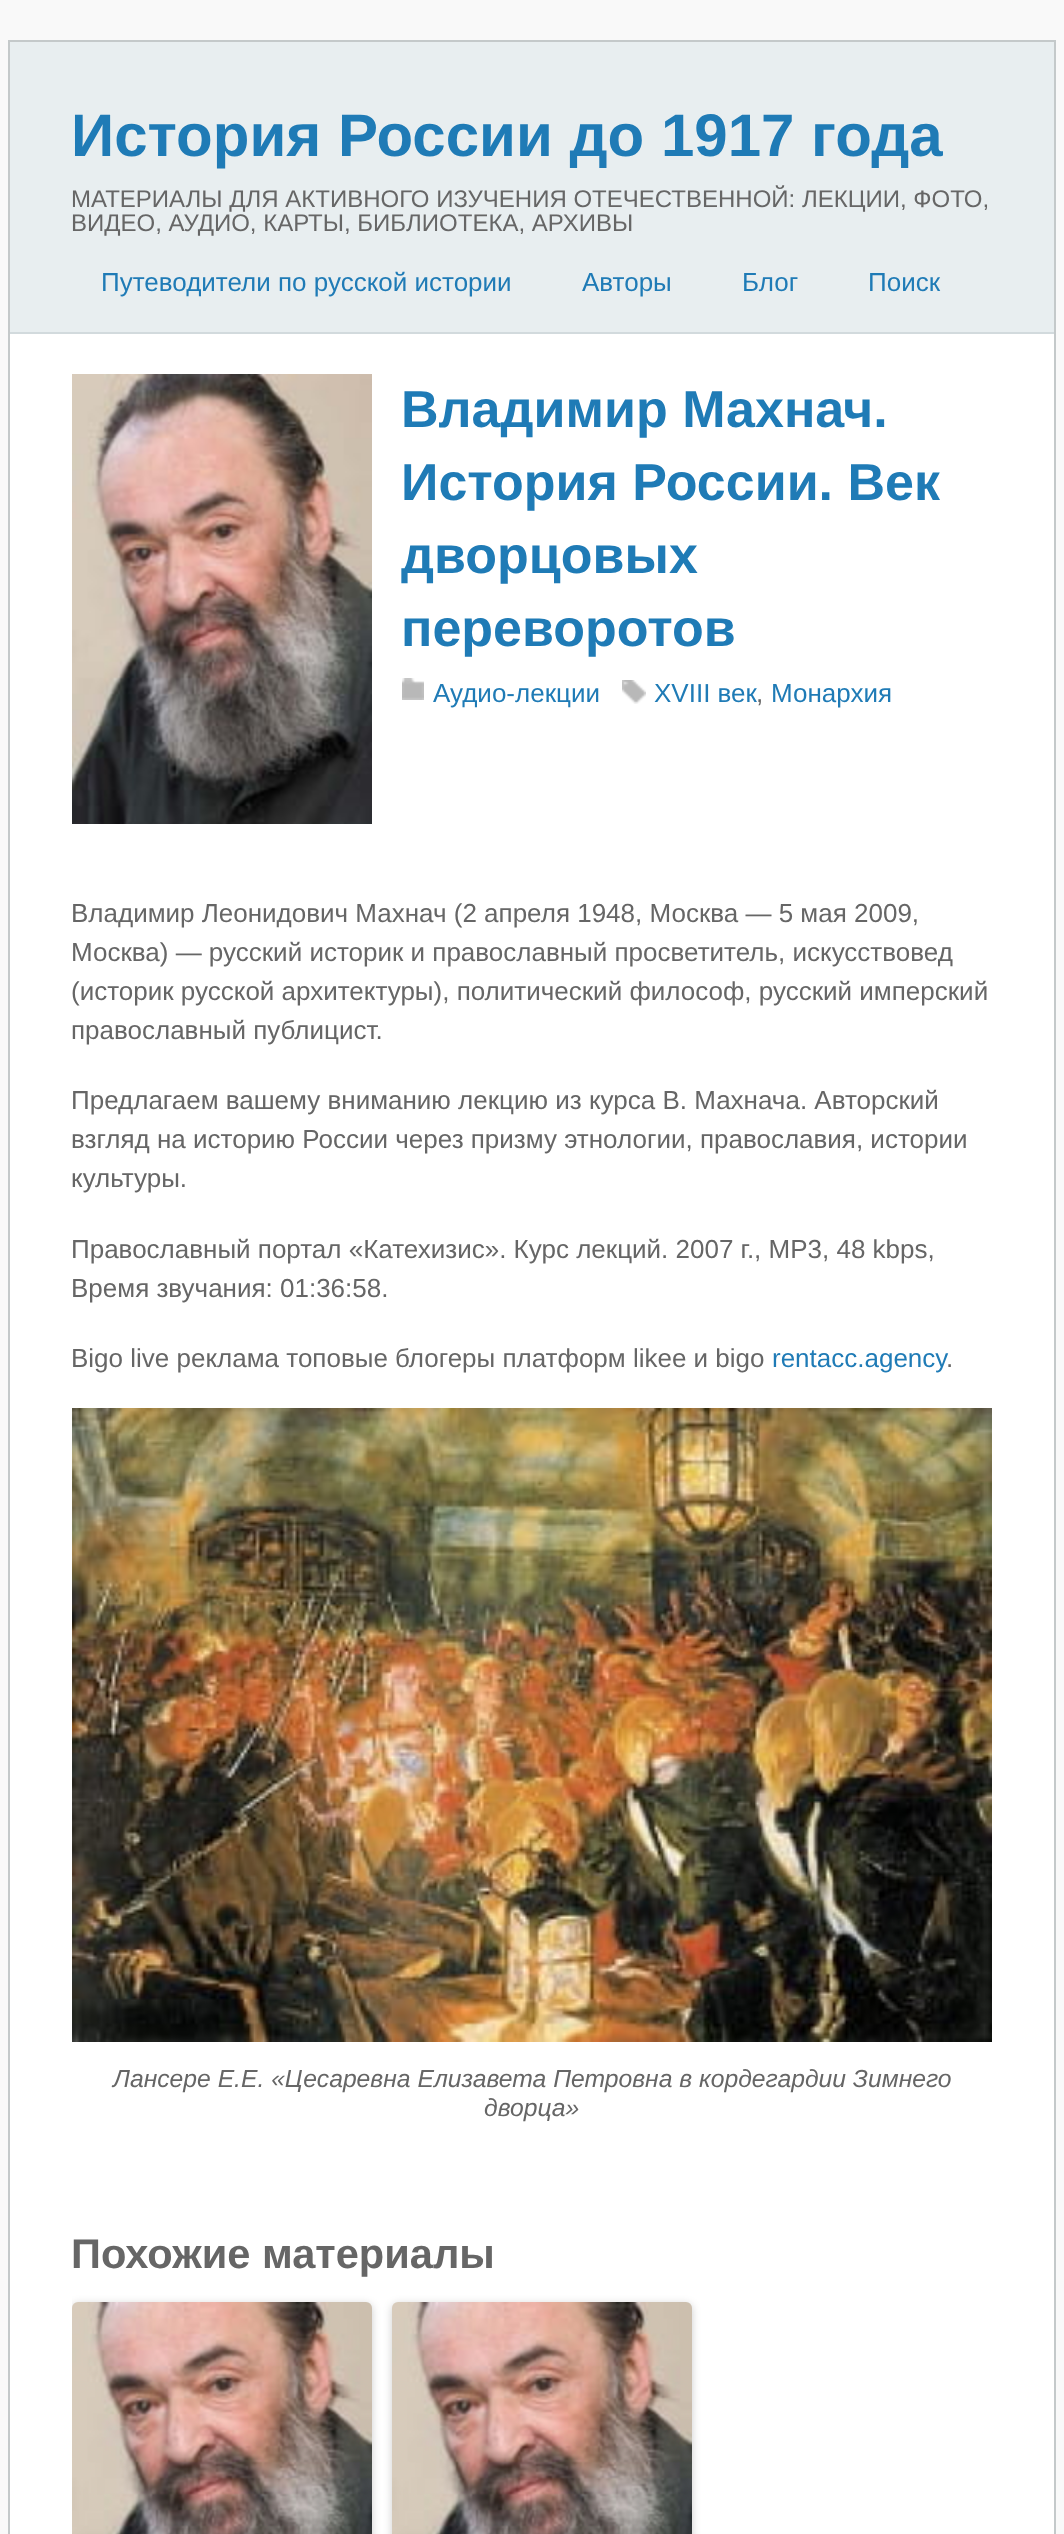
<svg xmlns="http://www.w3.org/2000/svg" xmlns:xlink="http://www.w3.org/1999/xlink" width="1064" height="2534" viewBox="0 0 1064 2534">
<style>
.cls-1{font:bold 60px Liberation Sans;fill:#1f7bb6}
.cls-2{font:24px Liberation Sans;fill:#666666}
.cls-3{font:26px Liberation Sans;fill:#1f7bb6}
.cls-4{font:bold 52px Liberation Sans;fill:#1f7bb6}
.cls-5{font:26px Liberation Sans;fill:#666666}
.cls-6{font:italic 24.7px Liberation Sans;fill:#666666}
.cls-7{font:bold 41.6px Liberation Sans;fill:#666666}
</style>
<defs>
<clipPath id="clip1"><rect x="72" y="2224" width="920" height="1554"/></clipPath>
</defs>
<rect width="100%" height="100%" fill="#f9f9f9"/>
<rect fill="none" stroke="#c4c9ca" stroke-width="2" x="9" y="41" width="1046" height="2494"/>
<rect fill="#e8eef0" x="10" y="42" width="1044" height="290"/>
<rect fill="#d2dadd" x="10" y="332" width="1044" height="2"/>
<rect fill="#ffffff" x="10" y="334" width="1044" height="2200"/>
<image xlink:href="image0.png" x="72" y="374" width="300" height="450"/>
<image xlink:href="image1.png" x="402" y="678" width="22" height="22"/>
<image xlink:href="image2.png" x="622" y="680" width="24" height="24"/>
<image xlink:href="image3.png" x="72" y="1408" width="920" height="634"/>
<g clip-path="url(#clip1)">
<rect fill="#000000" fill-opacity="0.2" filter="blur(4px)" x="72" y="2304" width="300" height="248" rx="6"/>
</g>
<image xlink:href="image4.png" x="72" y="2302" width="300" height="232"/>
<rect fill="#000000" fill-opacity="0.2" filter="blur(4px)" x="392" y="2304" width="300" height="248" rx="6"/>
<image xlink:href="image4.png" x="392" y="2302" width="300" height="232"/>
<text class="cls-1" x="71" y="156">История России до 1917 года</text>
<text class="cls-2"><tspan x="71" y="207">МАТЕРИАЛЫ ДЛЯ АКТИВНОГО ИЗУЧЕНИЯ ОТЕЧЕСТВЕННОЙ: ЛЕКЦИИ, ФОТО,</tspan><tspan x="71" y="231">ВИДЕО, АУДИО, КАРТЫ, БИБЛИОТЕКА, АРХИВЫ</tspan></text>
<text class="cls-3" x="101" y="291">Путеводители по русской истории</text>
<text class="cls-3" x="582" y="291">Авторы</text>
<text class="cls-3" x="742" y="291">Блог</text>
<text class="cls-3" x="868" y="291">Поиск</text>
<text class="cls-4"><tspan x="401" y="427">Владимир Махнач.</tspan><tspan x="401" y="500">История России. Век</tspan><tspan x="401" y="573">дворцовых</tspan><tspan x="401" y="646">переворотов</tspan></text>
<text class="cls-3" x="433" y="702">Аудио-лекции</text>
<text class="cls-3" x="654" y="702">XVIII век</text>
<text class="cls-5" x="756" y="702">,</text>
<text class="cls-3" x="771" y="702">Монархия</text>
<text class="cls-5"><tspan x="71" y="922">Владимир Леонидович Махнач (2 апреля 1948, Москва — 5 мая 2009,</tspan><tspan x="71" y="961">Москва) — русский историк и православный просветитель, искусствовед</tspan><tspan x="71" y="1000">(историк русской архитектуры), политический философ, русский имперский</tspan><tspan x="71" y="1039">православный публицист.</tspan></text>
<text class="cls-5"><tspan x="71" y="1109">Предлагаем вашему вниманию лекцию из курса В. Махнача. Авторский</tspan><tspan x="71" y="1148">взгляд на историю России через призму этнологии, православия, истории</tspan><tspan x="71" y="1187">культуры.</tspan></text>
<text class="cls-5"><tspan x="71" y="1258">Православный портал «Катехизис». Курс лекций. 2007 г., MP3, 48 kbps,</tspan><tspan x="71" y="1297">Время звучания: 01:36:58.</tspan></text>
<text class="cls-5" x="71" y="1367">Bigo live реклама топовые блогеры платформ likee и bigo</text>
<text class="cls-3" x="772" y="1367">rentacc.agency</text>
<text class="cls-5" x="946" y="1367">.</text>
<text class="cls-6" x="113" y="2087">Лансере Е.Е. «Цесаревна Елизавета Петровна в кордегардии Зимнего</text>
<text class="cls-6" x="484" y="2116">дворца»</text>
<text class="cls-7" x="71" y="2268">Похожие материалы</text>
</svg>
